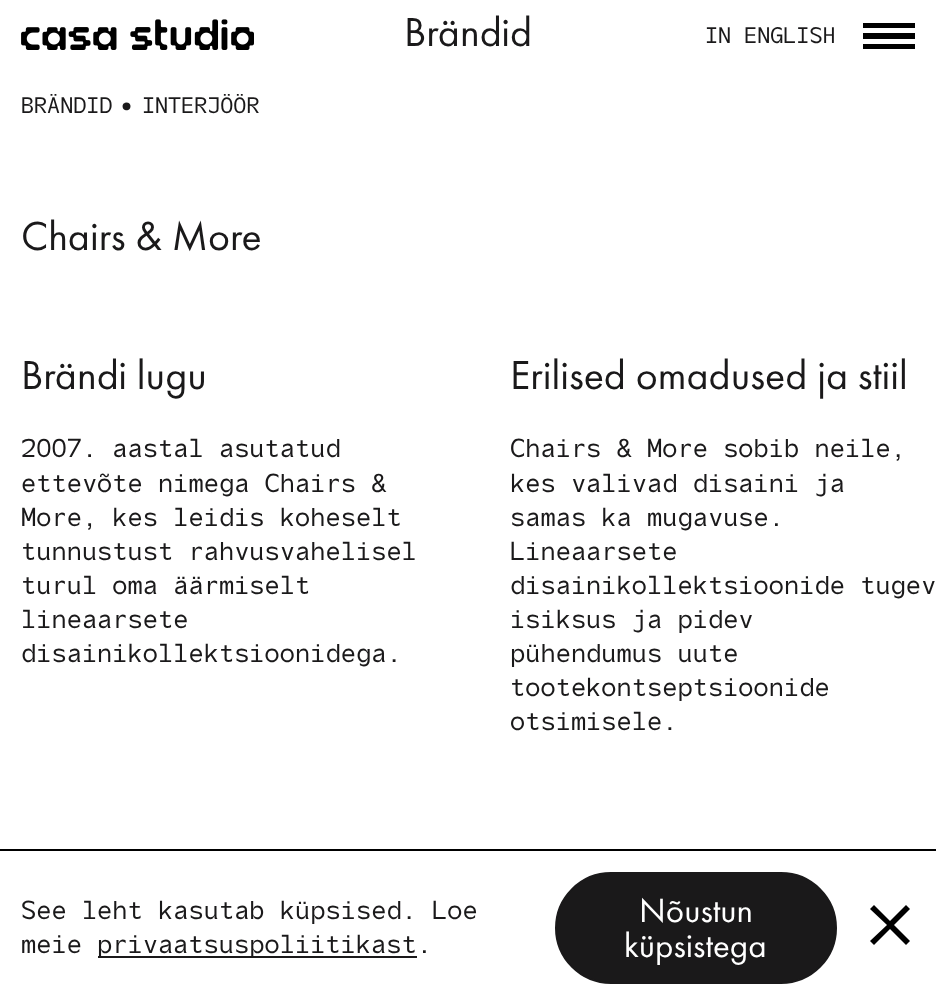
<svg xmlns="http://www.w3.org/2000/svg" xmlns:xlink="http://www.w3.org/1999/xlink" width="936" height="1004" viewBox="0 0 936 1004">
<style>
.cls-1{font:42px Futura PT;fill:#1a191a}
.cls-2{font:22.5px 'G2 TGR';fill:#1a191a}
.cls-3{font:26.25px 'G2 TGR';fill:#1a191a}
.cls-4{font:35px Futura PT;fill:#ffffff}
</style>
<rect width="100%" height="100%" fill="#ffffff"/>
<image xlink:href="image0.png" x="21" y="19" width="233" height="31"/>
<rect fill="#000000" x="863" y="23" width="52" height="5"/>
<rect fill="#000000" x="863" y="33" width="52" height="6"/>
<rect fill="#000000" x="863" y="44" width="52" height="5"/>
<rect fill="#000000" x="0" y="849" width="936" height="2"/>
<rect fill="#1a191a" x="98" y="956" width="319" height="2"/>
<rect fill="#1a191a" stroke="#1a191a" stroke-width="2" x="556" y="873" width="280" height="110" rx="55"/>
<path fill="#000000" d="M910 909L906 905L890 921L874 905L870 909L887 925L870 941L874 945L890 929L906 945L910 941L894 925Z"/>
<text class="cls-1" x="404" y="46">Brändid</text>
<text class="cls-2" x="705" y="43">IN ENGLISH</text>
<text class="cls-2" x="21" y="113">BRÄNDID</text>
<text class="cls-2" x="120" y="113">•</text>
<text class="cls-2" x="142" y="113">INTERJÖÖR</text>
<text class="cls-1" x="21" y="250">Chairs &amp; More</text>
<text class="cls-1" x="21" y="389">Brändi lugu</text>
<text class="cls-3"><tspan x="21" y="457">2007. aastal asutatud</tspan><tspan x="21" y="492">ettevõte nimega Chairs &amp;</tspan><tspan x="21" y="526">More, kes leidis koheselt</tspan><tspan x="21" y="560">tunnustust rahvusvahelisel</tspan><tspan x="21" y="594">turul oma äärmiselt</tspan><tspan x="21" y="628">lineaarsete</tspan><tspan x="21" y="662">disainikollektsioonidega.</tspan></text>
<text class="cls-1" x="510" y="389">Erilised omadused ja stiil</text>
<text class="cls-3"><tspan x="510" y="457">Chairs &amp; More sobib neile,</tspan><tspan x="510" y="492">kes valivad disaini ja</tspan><tspan x="510" y="526">samas ka mugavuse.</tspan><tspan x="510" y="560">Lineaarsete</tspan><tspan x="510" y="594">disainikollektsioonide tugev</tspan><tspan x="510" y="628">isiksus ja pidev</tspan><tspan x="510" y="662">pühendumus uute</tspan><tspan x="510" y="696">tootekontseptsioonide</tspan><tspan x="510" y="730">otsimisele.</tspan></text>
<text class="cls-3"><tspan x="21" y="919">See leht kasutab küpsised. Loe</tspan><tspan x="21" y="953">meie</tspan></text>
<text class="cls-3" x="97" y="953">privaatsuspoliitikast.</text>
<text class="cls-4" x="639" y="922">Nõustun</text>
<text class="cls-4" x="624" y="957">küpsistega</text>
</svg>
